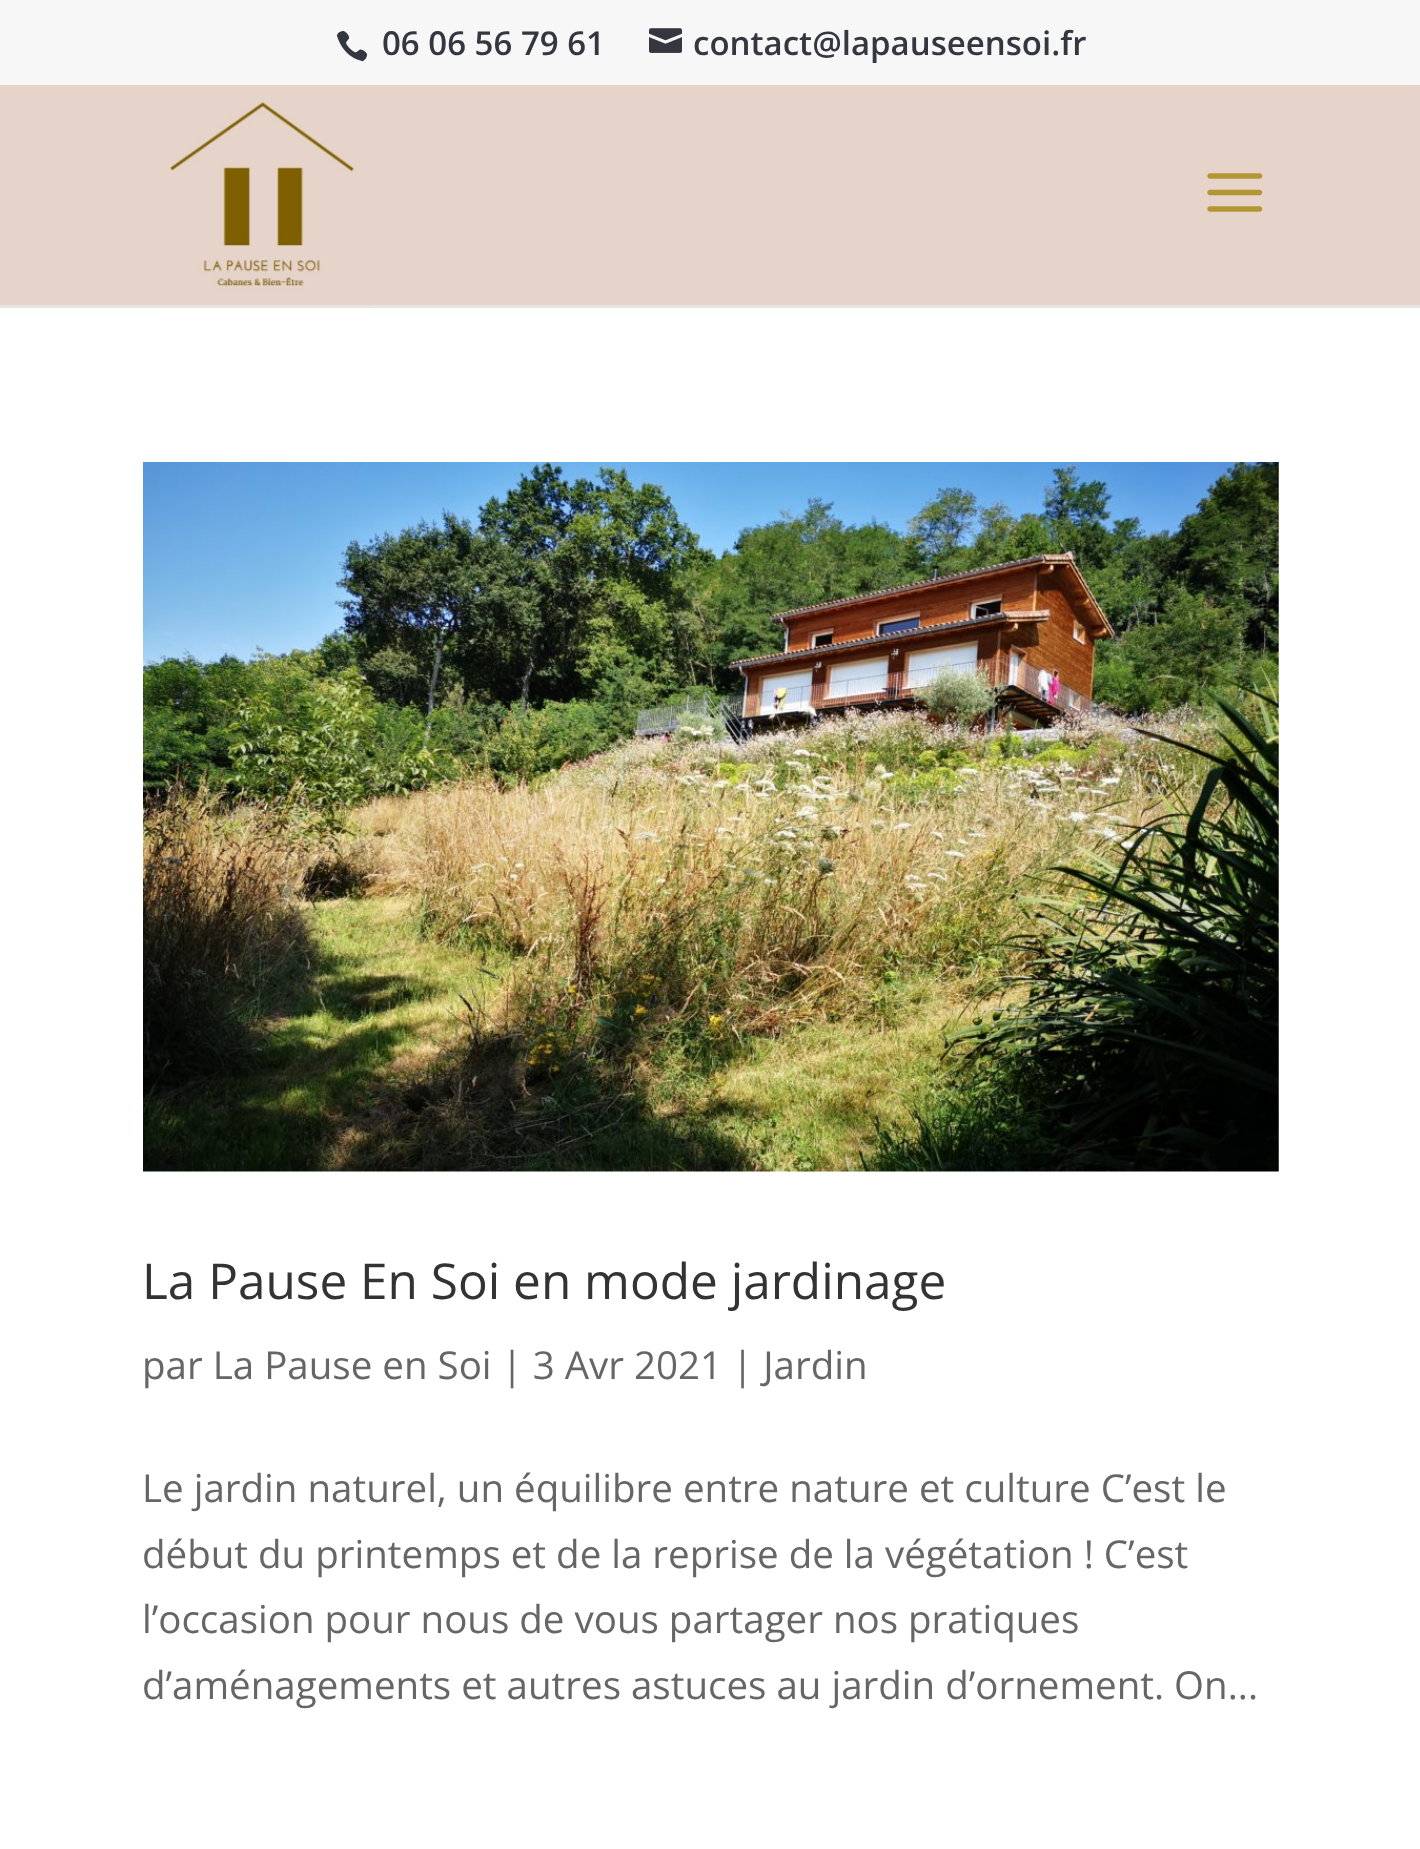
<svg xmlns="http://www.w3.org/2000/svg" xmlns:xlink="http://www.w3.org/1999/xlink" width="1420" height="1849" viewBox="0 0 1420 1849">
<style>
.cls-1{font:600 33px Open Sans;fill:#353740}
.cls-2{font:49.5px Open Sans;fill:#333333}
.cls-3{font:38.5px Open Sans;fill:#666666}
</style>
<rect width="100%" height="100%" fill="#ffffff"/>
<rect fill="#f7f7f7" x="0" y="0" width="1420" height="85"/>
<image xlink:href="image0.png" x="336" y="30" width="32" height="32"/>
<image xlink:href="image1.png" x="649" y="28" width="33" height="25"/>
<path fill="#e6e6e6" d="M0 305V308H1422V88V305Z"/>
<rect fill="#e6d4ca" x="0" y="85" width="1420" height="220"/>
<image xlink:href="image2.png" x="151" y="102" width="220" height="204"/>
<image xlink:href="image3.png" x="1207" y="173" width="56" height="39"/>
<image xlink:href="image4.png" x="143" y="462" width="1136" height="710"/>
<text class="cls-1" x="382" y="55">06 06 56 79 61</text>
<text class="cls-1" x="693" y="55">contact@lapauseensoi.fr</text>
<text class="cls-2" x="142" y="1299">La Pause En Soi en mode jardinage</text>
<text class="cls-3" x="142" y="1379">par La Pause en Soi | 3 Avr 2021 | Jardin</text>
<text class="cls-3"><tspan x="142" y="1502">Le jardin naturel, un équilibre entre nature et culture C’est le</tspan><tspan x="142" y="1568">début du printemps et de la reprise de la végétation ! C’est</tspan><tspan x="142" y="1633">l’occasion pour nous de vous partager nos pratiques</tspan><tspan x="142" y="1699">d’aménagements et autres astuces au jardin d’ornement. On...</tspan></text>
</svg>
